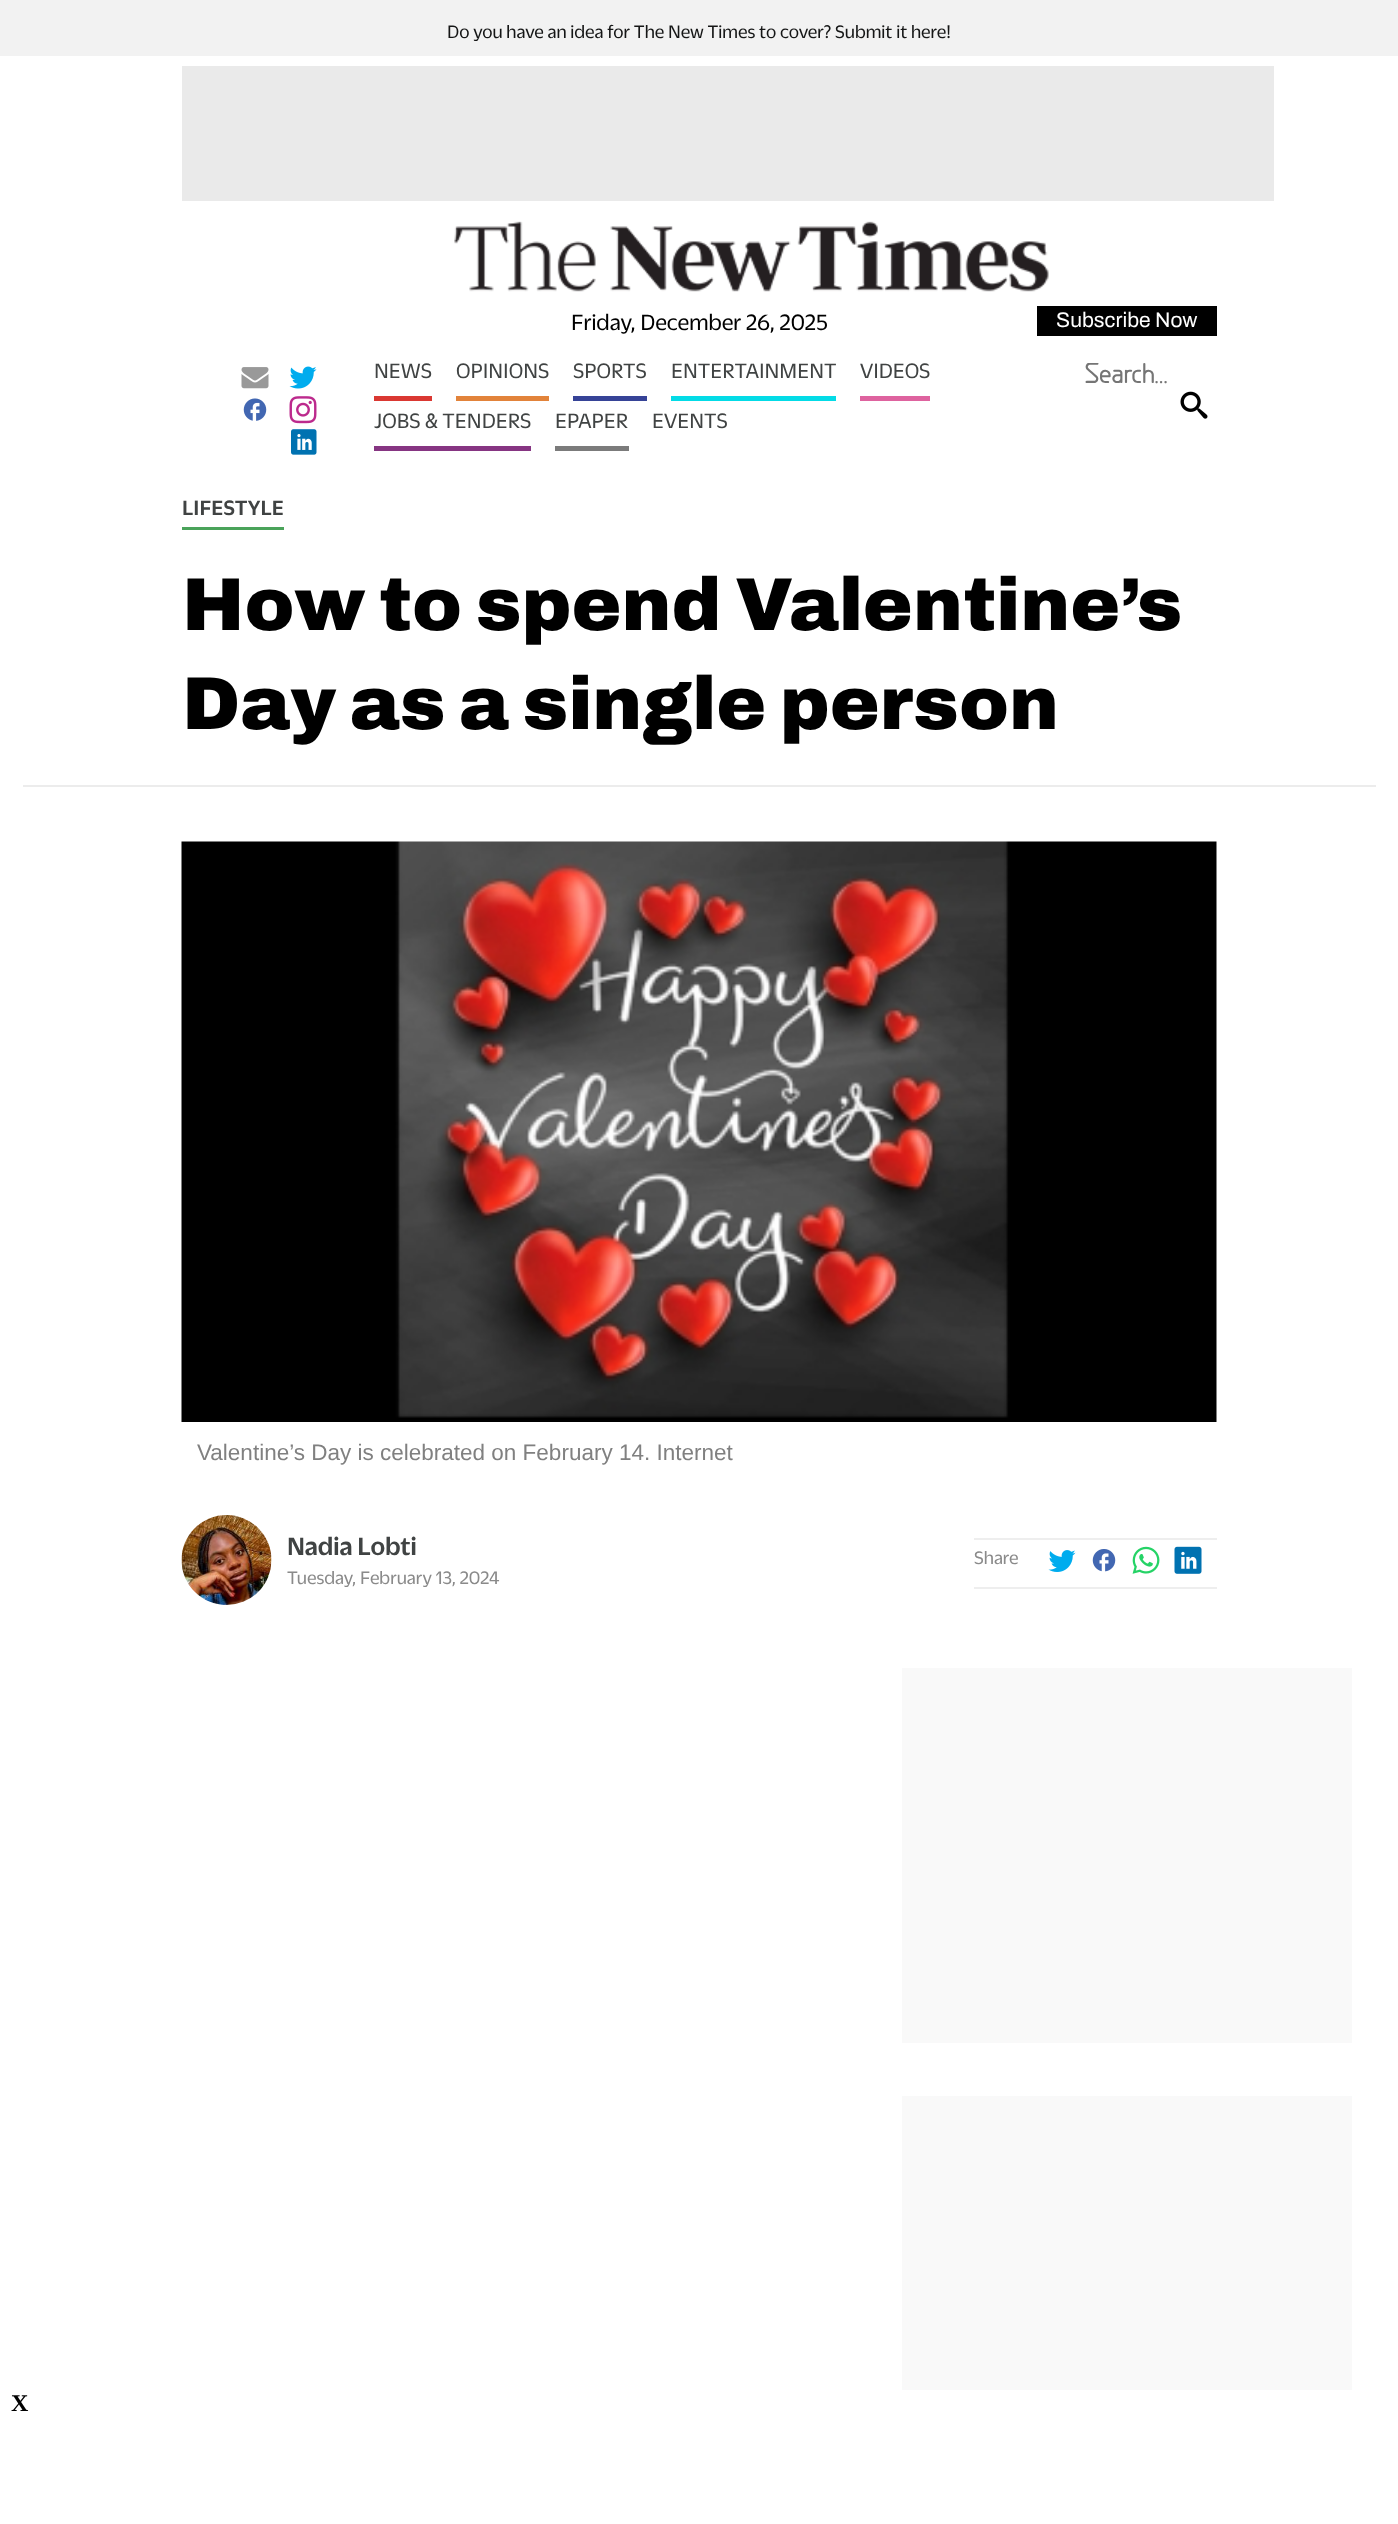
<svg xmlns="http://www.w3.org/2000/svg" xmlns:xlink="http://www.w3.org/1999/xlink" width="1398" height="2524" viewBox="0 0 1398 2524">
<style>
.cls-1{font:19.5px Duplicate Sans;fill:#151616}
.cls-2{font:24px Duplicate Sans;fill:#000000}
.cls-3{font:21px Archivo;fill:#ffffff}
.cls-4{font:22.5px Duplicate Sans;fill:#404343}
.cls-5{font:bold 27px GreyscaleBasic;fill:#757575}
.cls-6{font:500 22.5px Duplicate Sans;fill:#404343}
.cls-7{font:900 75px Archivo;fill:#000000}
.cls-8{font:22.5px Liberation Sans;fill:#808080}
.cls-9{font:500 27px Duplicate Sans;fill:#404343}
.cls-10{font:19.5px Duplicate Sans;fill:#8a8a8a}
.cls-11{font:bold 24px Liberation Serif;fill:#000000}
</style>
<defs>
<clipPath id="clip1"><rect x="1085" y="363" width="174" height="27"/></clipPath>
</defs>
<rect width="100%" height="100%" fill="#ffffff"/>
<rect fill="#f2f2f2" x="0" y="0" width="1398" height="56"/>
<rect fill="#eaeaea" x="182" y="66" width="1092" height="135"/>
<image xlink:href="image0.png" x="454" y="221" width="595" height="71"/>
<rect fill="#000000" x="1037" y="306" width="180" height="30"/>
<image xlink:href="image1.png" x="241" y="367" width="28" height="22"/>
<image xlink:href="image2.png" x="289" y="366" width="28" height="23"/>
<image xlink:href="image3.png" x="243" y="398" width="24" height="23"/>
<image xlink:href="image4.png" x="289" y="396" width="28" height="28"/>
<image xlink:href="image5.png" x="291" y="429" width="26" height="26"/>
<rect fill="#da3832" x="374" y="396" width="58" height="5"/>
<rect fill="#e2833a" x="456" y="396" width="93" height="5"/>
<rect fill="#364397" x="573" y="396" width="74" height="5"/>
<rect fill="#03dbe6" x="671" y="396" width="165" height="5"/>
<rect fill="#de639f" x="860" y="396" width="70" height="5"/>
<rect fill="#863582" x="374" y="446" width="157" height="5"/>
<rect fill="#7b7b7b" x="555" y="446" width="74" height="5"/>
<image xlink:href="image6.png" x="1180" y="391" width="28" height="28"/>
<rect fill="#4aa35a" x="182" y="527" width="102" height="3"/>
<rect fill="#ececec" x="23" y="785" width="1353" height="2"/>
<image xlink:href="image7.png" x="181" y="841" width="1036" height="581"/>
<image xlink:href="image8.png" x="181" y="1515" width="91" height="90"/>
<rect fill="#eeeeee" x="974" y="1538" width="243" height="2"/>
<rect fill="#eeeeee" x="974" y="1587" width="243" height="2"/>
<image xlink:href="image9.png" x="1048" y="1550" width="28" height="22"/>
<image xlink:href="image10.png" x="1092" y="1549" width="24" height="23"/>
<image xlink:href="image11.png" x="1132" y="1546" width="28" height="28"/>
<image xlink:href="image12.png" x="1174" y="1546" width="28" height="28"/>
<rect fill="#f9f9f9" x="902" y="1668" width="450" height="375"/>
<rect fill="#f9f9f9" x="902" y="2096" width="450" height="294"/>
<text class="cls-1" x="447" y="38">Do you have an idea for The New Times to cover? Submit it here!</text>
<text class="cls-2" x="571" y="330">Friday, December 26, 2025</text>
<text class="cls-3" x="1056" y="327">Subscribe Now</text>
<text class="cls-4" x="374" y="378">NEWS</text>
<text class="cls-4" x="456" y="378">OPINIONS</text>
<text class="cls-4" x="573" y="378">SPORTS</text>
<text class="cls-4" x="671" y="378">ENTERTAINMENT</text>
<text class="cls-4" x="860" y="378">VIDEOS</text>
<text class="cls-4" x="374" y="428">JOBS &amp; TENDERS</text>
<text class="cls-4" x="555" y="428">EPAPER</text>
<text class="cls-4" x="652" y="428">EVENTS</text>
<g clip-path="url(#clip1)">
<text class="cls-5" x="1085" y="383">Search...</text>
</g>
<text class="cls-6" x="182" y="515">LIFESTYLE</text>
<text class="cls-7"><tspan x="182" y="630">How to spend Valentine’s</tspan><tspan x="182" y="729">Day as a single person</tspan></text>
<text class="cls-8" x="197" y="1460">Valentine’s Day is celebrated on February 14. Internet</text>
<text class="cls-9" x="287" y="1555">Nadia Lobti</text>
<text class="cls-10" x="287" y="1584">Tuesday, February 13, 2024</text>
<text class="cls-10" x="974" y="1564">Share</text>
<text class="cls-11" x="11" y="2411">X</text>
</svg>
